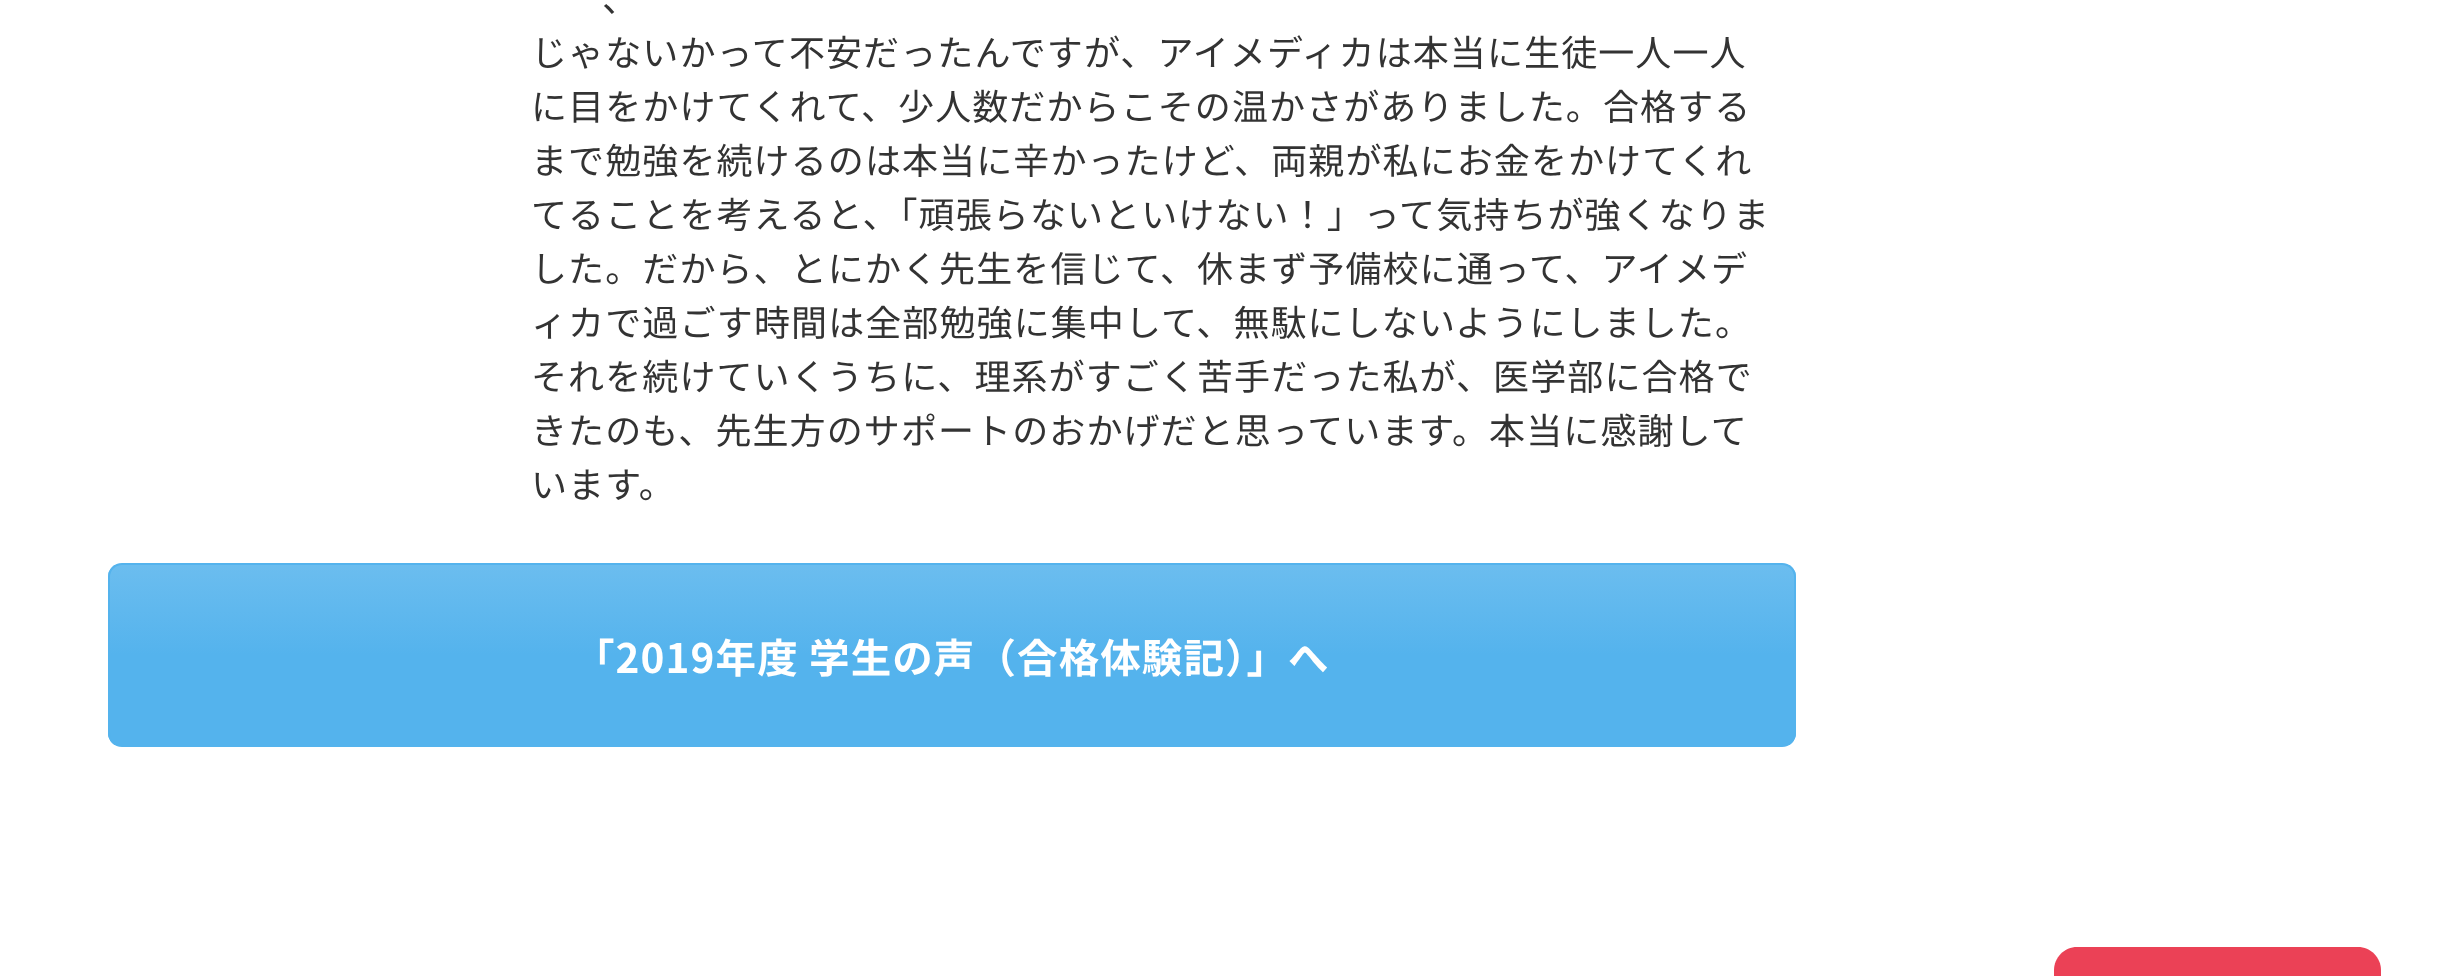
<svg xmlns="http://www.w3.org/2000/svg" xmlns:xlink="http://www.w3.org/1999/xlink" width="2442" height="976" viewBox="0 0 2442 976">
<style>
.cls-1{font:36px Noto Sans JP;letter-spacing:1.1px;fill:#333333}
.cls-2{font:bold 40.5px Noto Sans JP;letter-spacing:1.1px;fill:#ffffff}
</style>
<defs>
<clipPath id="clip1"><rect x="108" y="563" width="1688" height="184" rx="14"/></clipPath>
<linearGradient id="g1" gradientUnits="userSpaceOnUse" x1="952" y1="565" x2="952" y2="745"><stop offset="0" stop-color="#6bbdef"/><stop offset="0.5" stop-color="#54b3ed"/></linearGradient>
</defs>
<rect width="100%" height="100%" fill="#ffffff"/>
<g clip-path="url(#clip1)">
<rect fill="url(#g1)" x="108" y="565" width="1688" height="180"/>
</g>
<rect fill="none" stroke="#54b3ed" stroke-width="2" x="109" y="564" width="1686" height="182" rx="13"/>
<path fill="#eb4156" d="M2077 947H2358C2370.5 947 2381 957.5 2381 970V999H2054V970C2054 957.5 2064.5 947 2077 947Z"/>
<text class="cls-1" x="602" y="12">、</text>
<text class="cls-1"><tspan x="531" y="66">じゃないかって不安だったんですが、アイメディカは本当に生徒一人一人</tspan><tspan x="531" y="120">に目をかけてくれて、少人数だからこその温かさがありました。合格する</tspan><tspan x="531" y="174">まで勉強を続けるのは本当に辛かったけど、両親が私にお金をかけてくれ</tspan><tspan x="531" y="228">てることを考えると、「頑張らないといけない！」って気持ちが強くなりま</tspan><tspan x="531" y="282">した。だから、とにかく先生を信じて、休まず予備校に通って、アイメデ</tspan><tspan x="531" y="336">ィカで過ごす時間は全部勉強に集中して、無駄にしないようにしました。</tspan><tspan x="531" y="390">それを続けていくうちに、理系がすごく苦手だった私が、医学部に合格で</tspan><tspan x="531" y="444">きたのも、先生方のサポートのおかげだと思っています。本当に感謝して</tspan><tspan x="531" y="498">います。</tspan></text>
<text class="cls-2" x="574" y="673">「2019年度 学生の声（合格体験記）」へ</text>
</svg>
